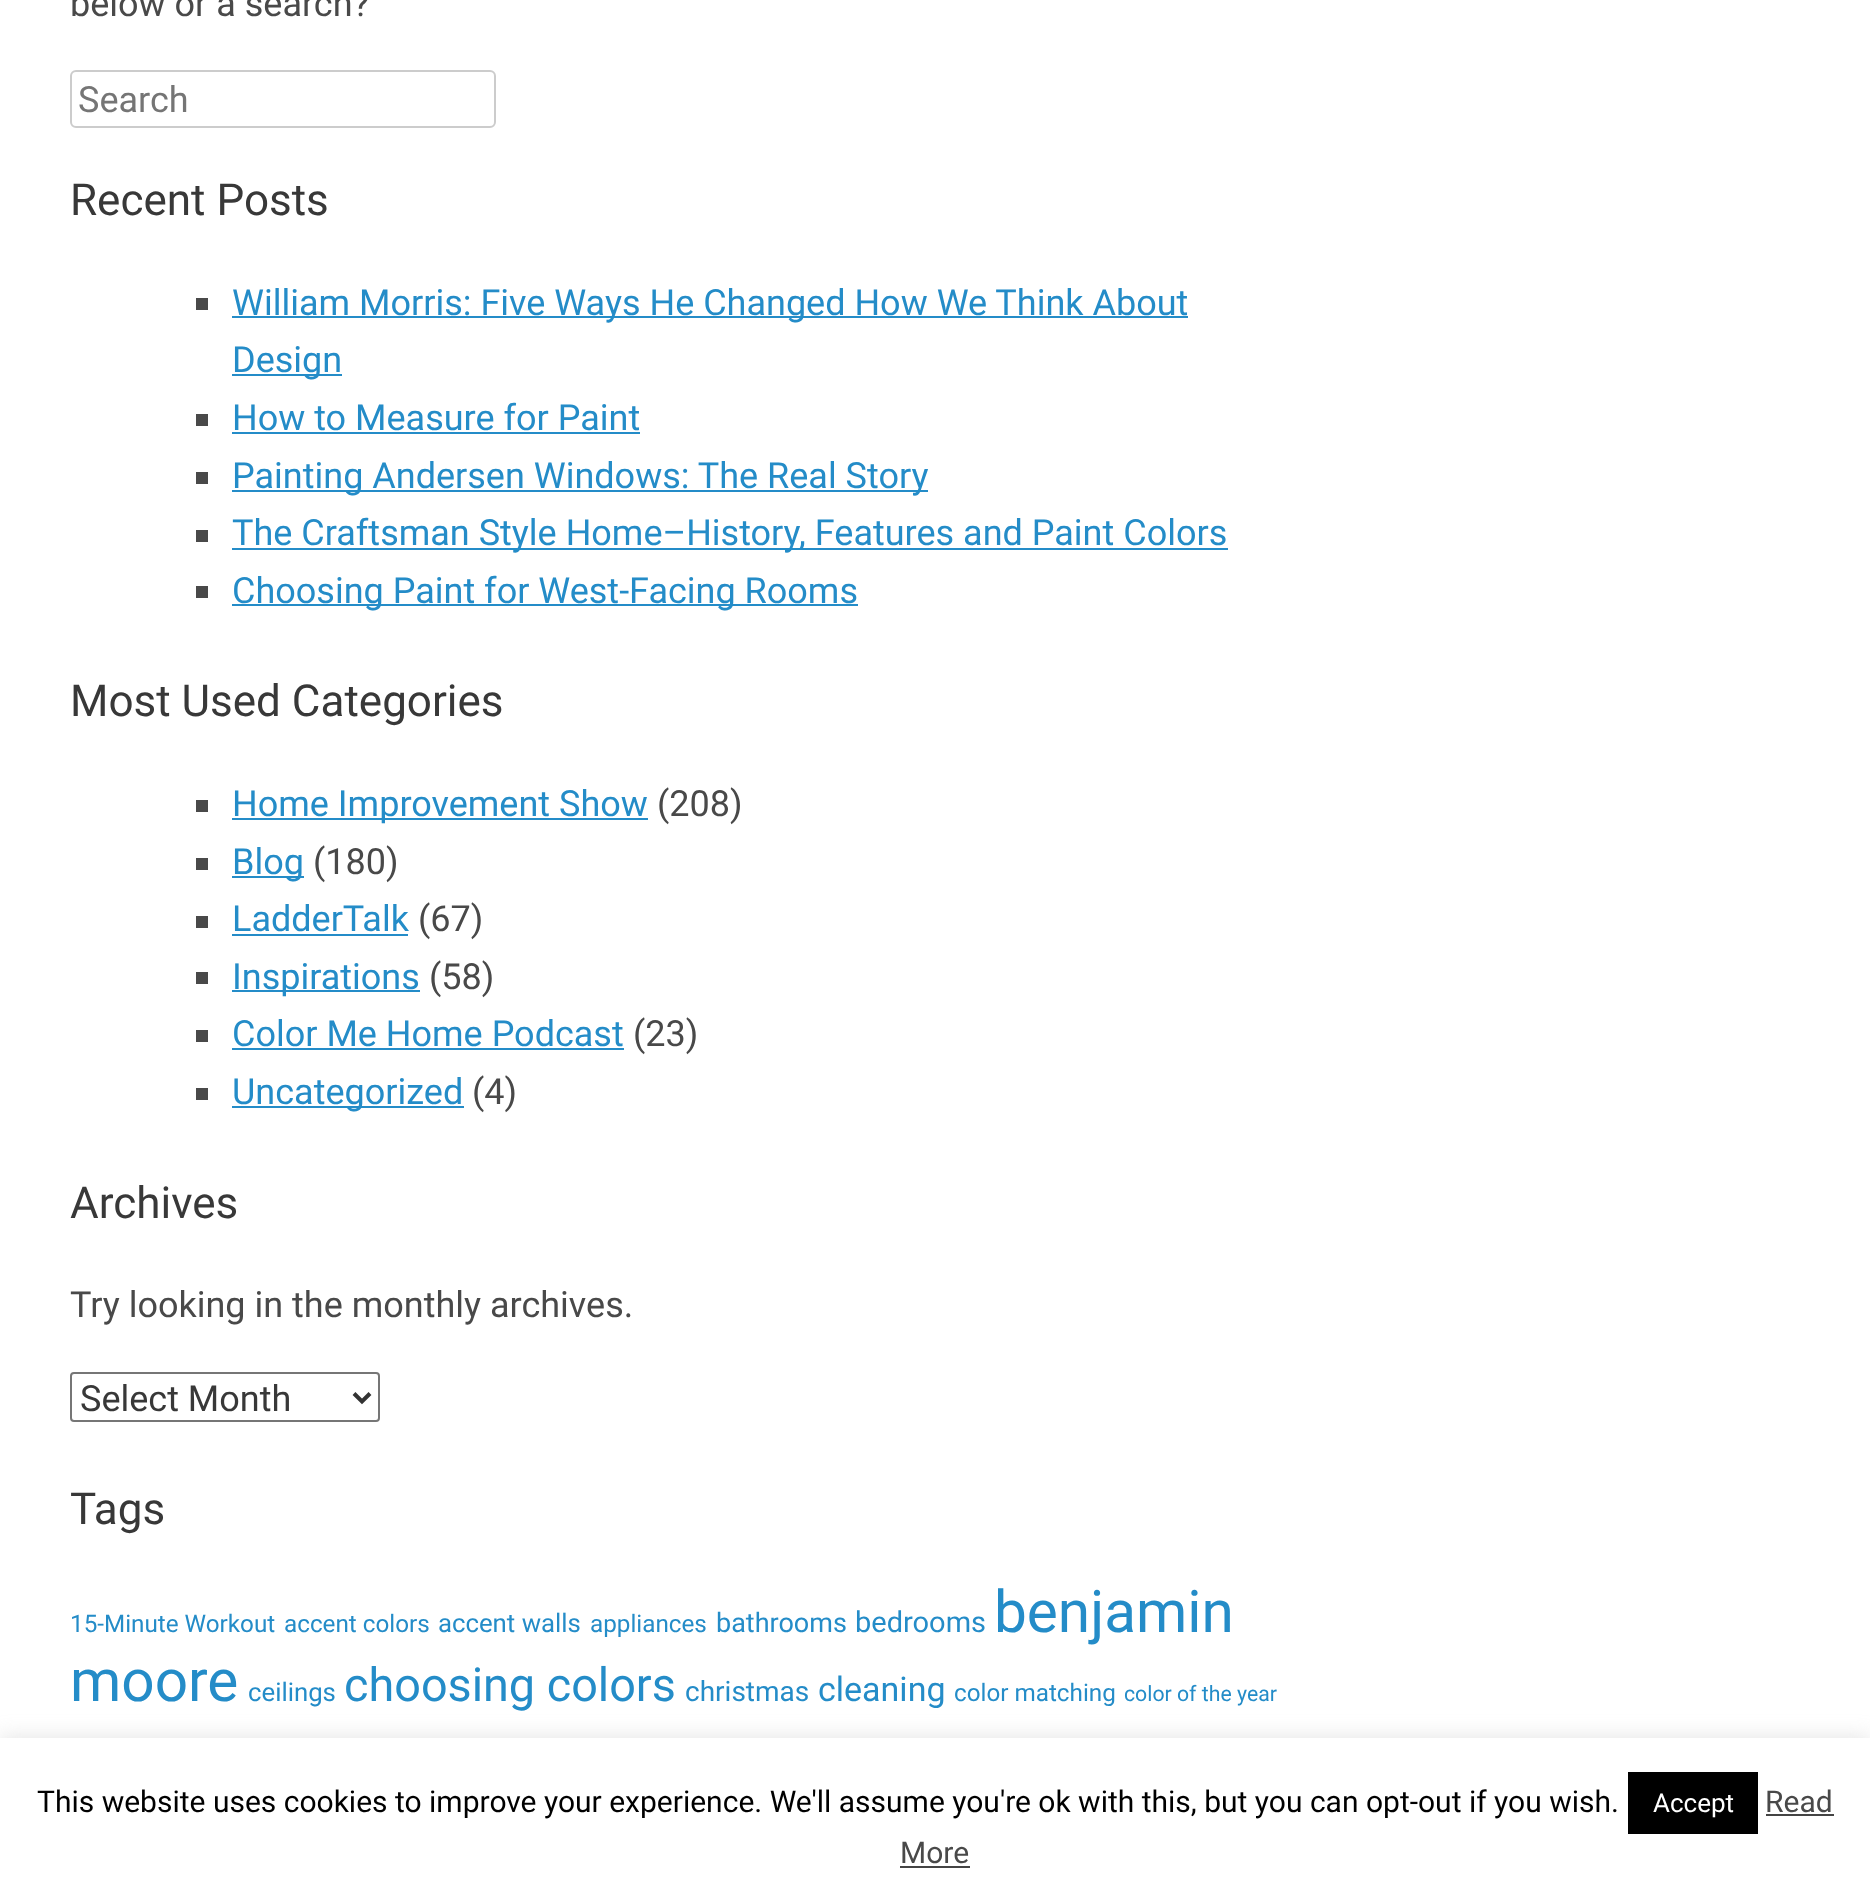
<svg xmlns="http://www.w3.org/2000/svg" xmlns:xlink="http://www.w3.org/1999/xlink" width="1870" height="1897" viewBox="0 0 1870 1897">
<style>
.cls-1{font:36px Roboto;fill:#494949}
.cls-2{font:36px Roboto;fill:#757575}
.cls-3{font:44px Roboto;fill:#383838}
.cls-4{font:36px Roboto;fill:#248cc8}
.cls-5{font:36px Roboto;fill:#383838}
.cls-6{font:24.25px Roboto;fill:#248cc8}
.cls-7{font:25.75px Roboto;fill:#248cc8}
.cls-8{font:27px Roboto;fill:#248cc8}
.cls-9{font:29px Roboto;fill:#248cc8}
.cls-10{font:58.5px Roboto;fill:#248cc8}
.cls-11{font:46.75px Roboto;fill:#248cc8}
.cls-12{font:28px Roboto;fill:#248cc8}
.cls-13{font:34px Roboto;fill:#248cc8}
.cls-14{font:21.25px Roboto;fill:#248cc8}
.cls-15{font:30px Roboto;fill:#000000}
.cls-16{font:26px Roboto;fill:#ffffff}
.cls-17{font:30px Roboto;fill:#494949}
</style>
<rect width="100%" height="100%" fill="#ffffff"/>
<rect fill="none" stroke="#cccccc" stroke-width="2" x="71" y="71" width="424" height="56" rx="5"/>
<rect fill="#494949" x="196" y="298" width="12" height="12"/>
<rect fill="#248cc8" x="232" y="316" width="956" height="2"/>
<rect fill="#248cc8" x="232" y="374" width="110" height="2"/>
<rect fill="#494949" x="196" y="414" width="12" height="12"/>
<rect fill="#248cc8" x="232" y="432" width="408" height="2"/>
<rect fill="#494949" x="196" y="472" width="12" height="12"/>
<rect fill="#248cc8" x="232" y="490" width="696" height="2"/>
<rect fill="#494949" x="196" y="530" width="12" height="12"/>
<rect fill="#248cc8" x="232" y="548" width="996" height="2"/>
<rect fill="#494949" x="196" y="586" width="12" height="12"/>
<rect fill="#248cc8" x="232" y="604" width="626" height="2"/>
<rect fill="#494949" x="196" y="800" width="12" height="12"/>
<rect fill="#248cc8" x="232" y="818" width="416" height="2"/>
<rect fill="#494949" x="196" y="858" width="12" height="12"/>
<rect fill="#248cc8" x="232" y="876" width="72" height="2"/>
<rect fill="#494949" x="196" y="916" width="12" height="12"/>
<rect fill="#248cc8" x="232" y="934" width="176" height="2"/>
<rect fill="#494949" x="196" y="972" width="12" height="12"/>
<rect fill="#248cc8" x="232" y="990" width="188" height="2"/>
<rect fill="#494949" x="196" y="1030" width="12" height="12"/>
<rect fill="#248cc8" x="232" y="1048" width="392" height="2"/>
<rect fill="#494949" x="196" y="1088" width="12" height="12"/>
<rect fill="#248cc8" x="232" y="1106" width="232" height="2"/>
<rect fill="none" stroke="#767676" stroke-width="2" x="71" y="1373" width="308" height="48" rx="3"/>
<path fill="none" stroke="#333333" stroke-width="4" d="M354 1393.5L362 1401.5L370 1393.5"/>
<rect fill="#acabab" fill-opacity="0.3" filter="blur(10px)" x="0" y="1736" width="1870" height="160"/>
<rect fill="#ffffff" x="0" y="1738" width="1870" height="159"/>
<rect fill="#000000" x="1628" y="1772" width="130" height="62"/>
<rect fill="#444444" x="1766" y="1814" width="68" height="2"/>
<rect fill="#444444" x="900" y="1866" width="70" height="2"/>
<text class="cls-1" x="70" y="16">below or a search?</text>
<text class="cls-2" x="78" y="112">Search</text>
<text class="cls-3" x="70" y="215">Recent Posts</text>
<text class="cls-4"><tspan x="232" y="315">William Morris: Five Ways He Changed How We Think About</tspan><tspan x="232" y="372">Design</tspan><tspan x="232" y="430">How to Measure for Paint</tspan><tspan x="232" y="488">Painting Andersen Windows: The Real Story</tspan><tspan x="232" y="545">The Craftsman Style Home–History, Features and Paint Colors</tspan><tspan x="232" y="603">Choosing Paint for West-Facing Rooms</tspan></text>
<text class="cls-3" x="70" y="716">Most Used Categories</text>
<text class="cls-4" x="232" y="816">Home Improvement Show</text>
<text class="cls-1" x="657" y="816">(208)</text>
<text class="cls-4" x="232" y="874">Blog</text>
<text class="cls-1" x="313" y="874">(180)</text>
<text class="cls-4" x="232" y="931">LadderTalk</text>
<text class="cls-1" x="418" y="931">(67)</text>
<text class="cls-4" x="232" y="989">Inspirations</text>
<text class="cls-1" x="429" y="989">(58)</text>
<text class="cls-4" x="232" y="1046">Color Me Home Podcast</text>
<text class="cls-1" x="633" y="1046">(23)</text>
<text class="cls-4" x="232" y="1104">Uncategorized</text>
<text class="cls-1" x="472" y="1104">(4)</text>
<text class="cls-3" x="70" y="1218">Archives</text>
<text class="cls-1" x="70" y="1317">Try looking in the monthly archives.</text>
<text class="cls-5" x="80" y="1411">Select Month</text>
<text class="cls-3" x="70" y="1524">Tags</text>
<text class="cls-6" x="70" y="1632">15-Minute Workout</text>
<text class="cls-6" x="284" y="1632">accent colors</text>
<text class="cls-7" x="438" y="1632">accent walls</text>
<text class="cls-6" x="590" y="1632">appliances</text>
<text class="cls-8" x="716" y="1632">bathrooms</text>
<text class="cls-9" x="855" y="1632">bedrooms</text>
<text class="cls-10" x="994" y="1632">benjamin</text>
<text class="cls-10" x="70" y="1701">moore</text>
<text class="cls-7" x="248" y="1701">ceilings</text>
<text class="cls-11" x="344" y="1701">choosing colors</text>
<text class="cls-12" x="685" y="1701">christmas</text>
<text class="cls-13" x="818" y="1701">cleaning</text>
<text class="cls-6" x="954" y="1701">color matching</text>
<text class="cls-14" x="1124" y="1701">color of the year</text>
<text class="cls-15" x="37" y="1812">This website uses cookies to improve your experience. We'll assume you're ok with this, but you can opt-out if you wish.</text>
<text class="cls-16" x="1653" y="1812">Accept</text>
<text class="cls-17" x="1765" y="1812">Read</text>
<text class="cls-17" x="900" y="1863">More</text>
</svg>
